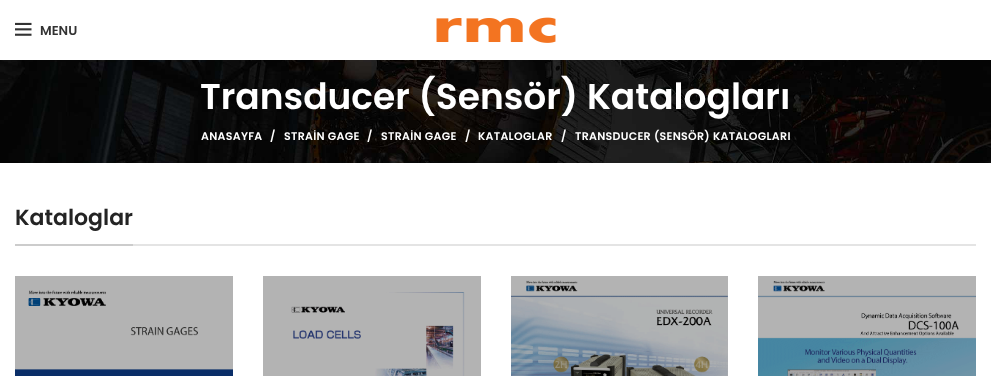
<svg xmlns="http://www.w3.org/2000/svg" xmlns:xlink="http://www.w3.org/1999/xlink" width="991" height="376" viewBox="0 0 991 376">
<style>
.cls-1{font:600 13px Poppins;fill:#333333}
.cls-2{font:600 36px Poppins;fill:#ffffff}
.cls-3{font:600 11px Poppins;letter-spacing:0.3px;fill:#ffffff}
.cls-4{font:600 22px Poppins;fill:#242424}
</style>
<rect width="100%" height="100%" fill="#ffffff"/>
<rect fill="#b3b3b3" x="758" y="276" width="218" height="63"/>
<rect fill="#b3b3b3" x="511" y="276" width="217" height="100"/>
<rect fill="#b3b3b3" x="263" y="276" width="218" height="100"/>
<rect fill="#b3b3b3" x="15" y="276" width="218" height="94"/>
<image xlink:href="image0.png" x="15" y="22" width="17" height="14"/>
<image xlink:href="image1.png" x="436" y="17" width="120" height="26"/>
<image xlink:href="image2.png" x="0" y="60" width="991" height="103"/>
<rect fill="#e4e4e4" x="133" y="244" width="843" height="2"/>
<rect fill="#cccccc" x="15" y="244" width="118" height="2"/>
<image xlink:href="image3.png" x="15" y="290" width="218" height="86"/>
<image xlink:href="image4.png" x="291" y="292" width="174" height="84"/>
<image xlink:href="image5.png" x="511" y="280" width="217" height="96"/>
<image xlink:href="image6.png" x="758" y="280" width="218" height="96"/>
<text class="cls-1" x="40" y="35">MENU</text>
<text class="cls-2" x="200" y="109">Transducer (Sensör) Katalogları</text>
<text class="cls-3" x="201" y="140">ANASAYFA</text>
<text class="cls-3" x="270" y="140">/</text>
<text class="cls-3" x="284" y="140">STRAİN GAGE</text>
<text class="cls-3" x="367" y="140">/</text>
<text class="cls-3" x="381" y="140">STRAİN GAGE</text>
<text class="cls-3" x="465" y="140">/</text>
<text class="cls-3" x="478" y="140">KATALOGLAR</text>
<text class="cls-3" x="561" y="140">/</text>
<text class="cls-3" x="575" y="140">TRANSDUCER (SENSÖR) KATALOGLARI</text>
<text class="cls-4" x="15" y="225">Kataloglar</text>
</svg>
